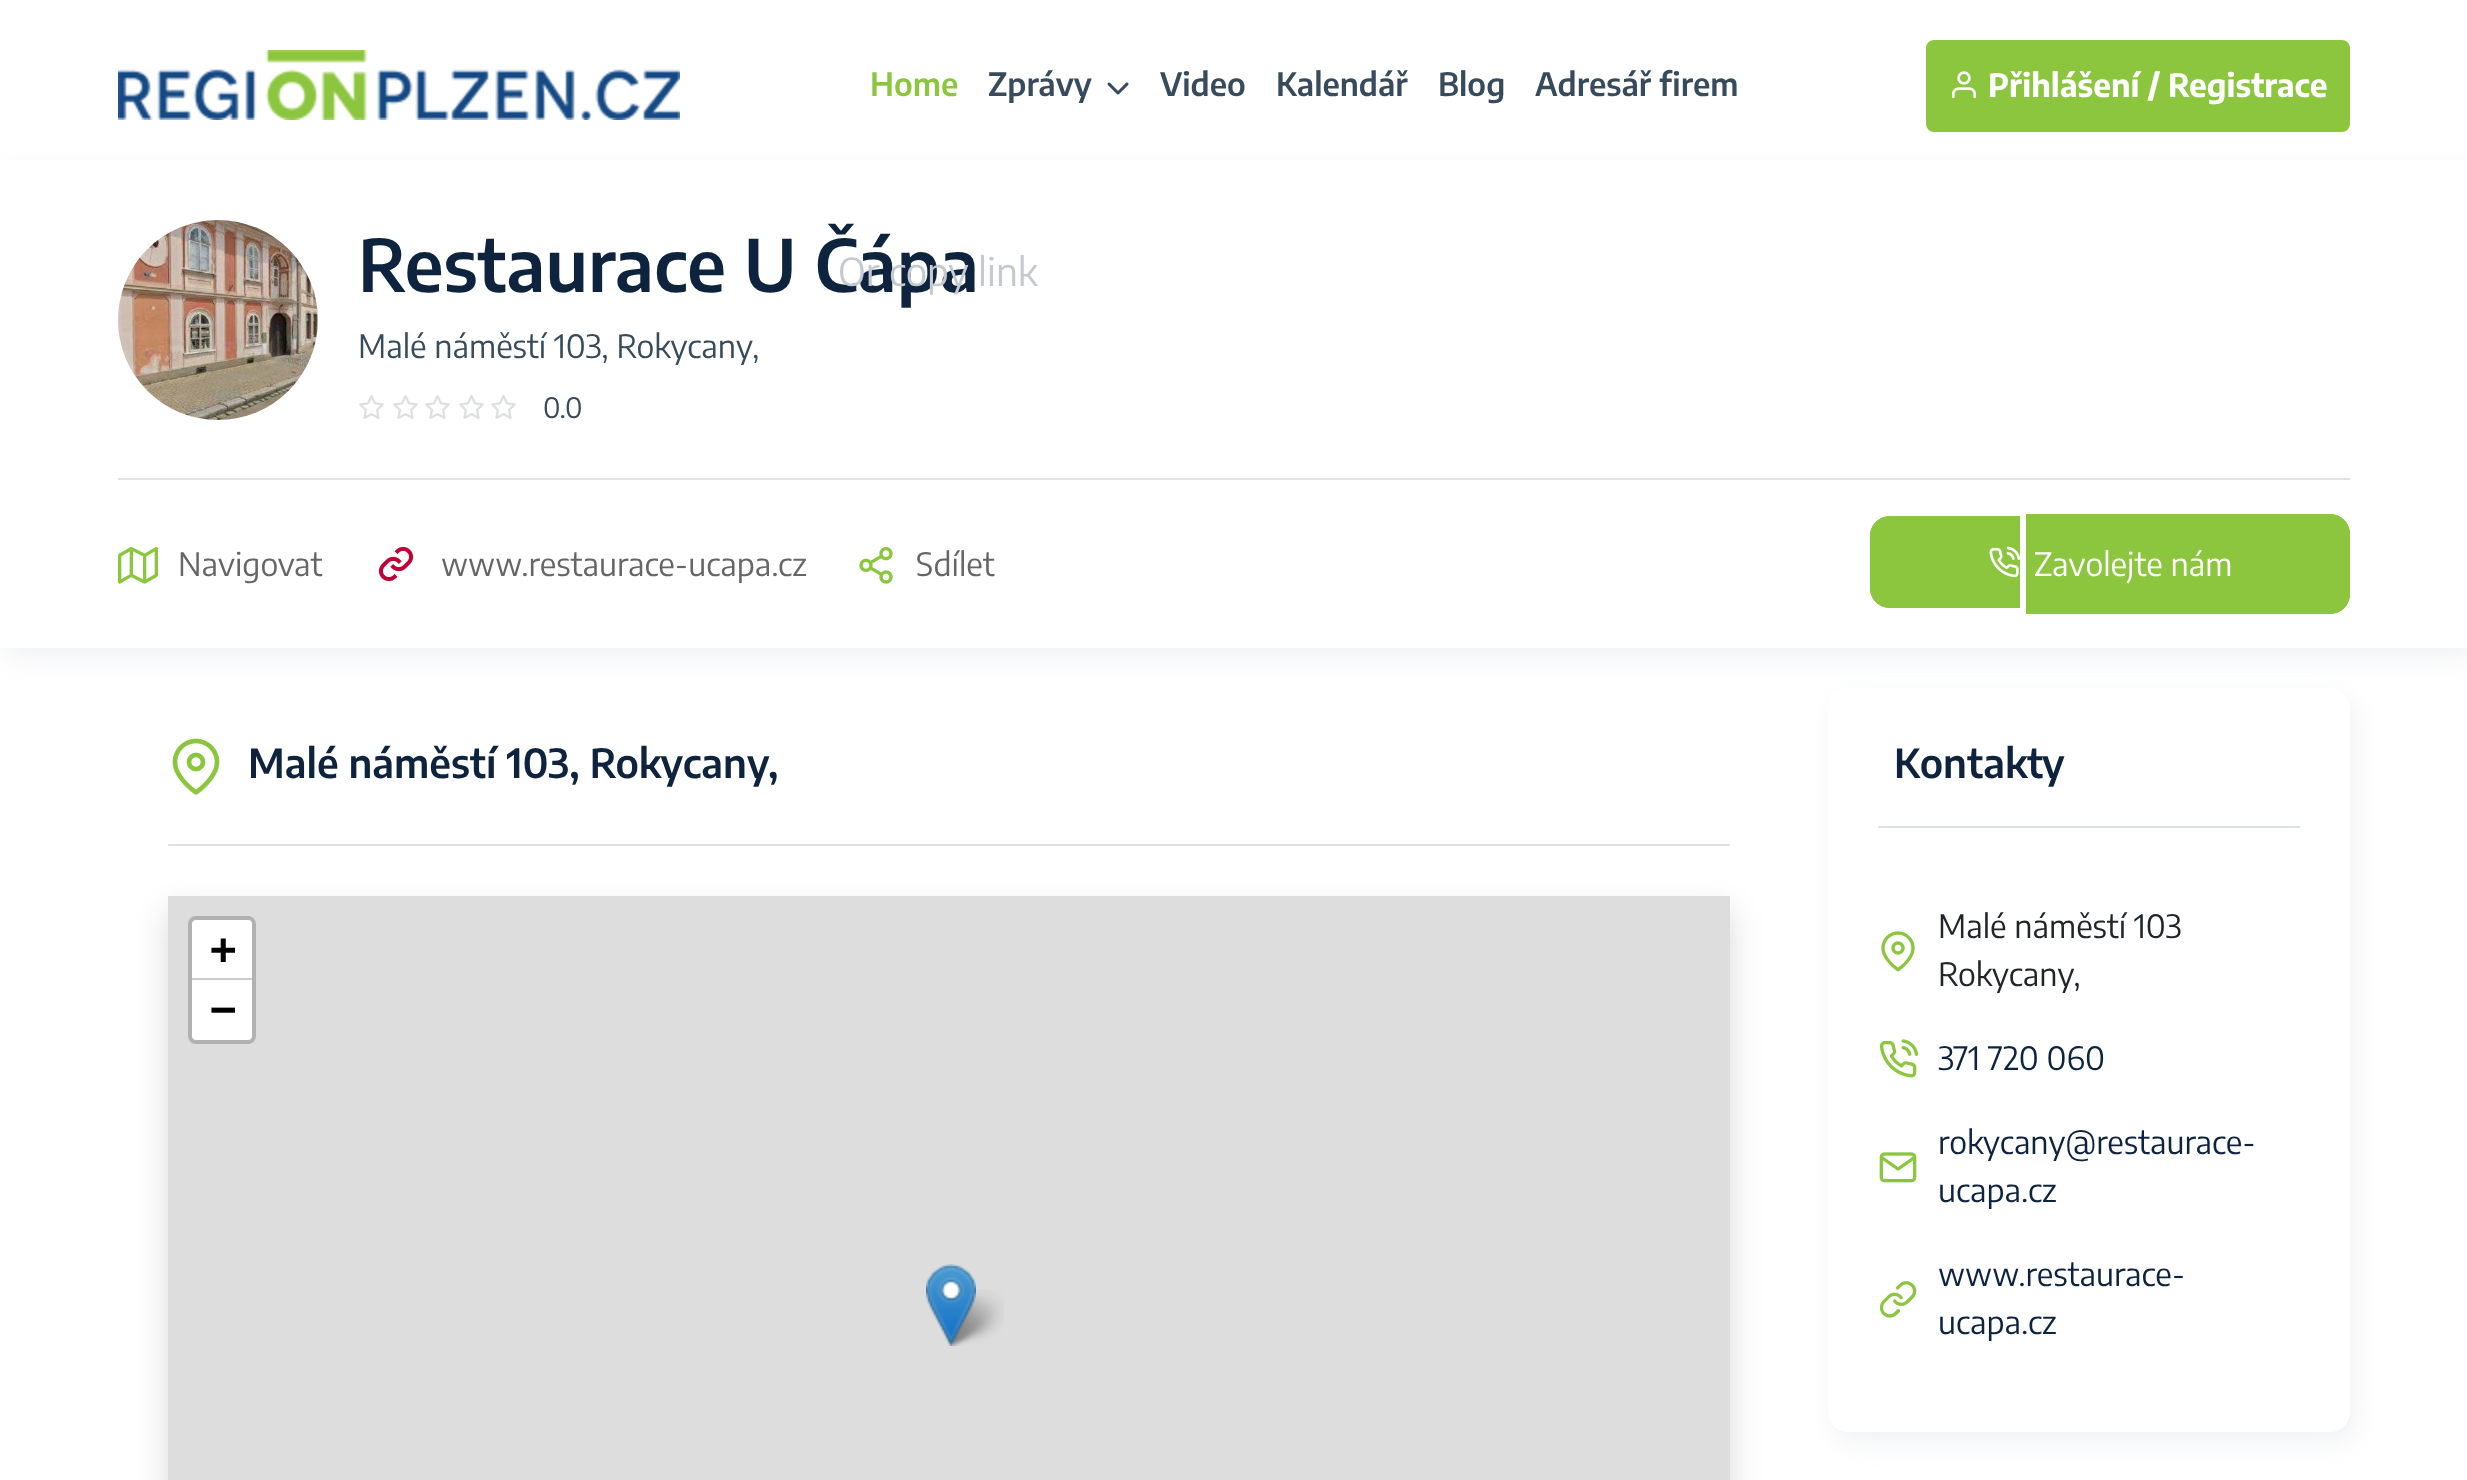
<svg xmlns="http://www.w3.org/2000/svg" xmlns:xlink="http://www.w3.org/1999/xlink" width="2467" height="1480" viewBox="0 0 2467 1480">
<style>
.cls-1{font:600 32px Encode Sans;fill:#8cc63f}
.cls-2{font:600 32px Encode Sans;fill:#374b5c}
.cls-3{font:bold 32px Encode Sans;fill:#ffffff}
.cls-4{font:600 72px Encode Sans;fill:#0d233e}
.cls-5{font:32px Encode Sans;fill:#374b5c}
.cls-6{font:28px Encode Sans;fill:#374b5c}
.cls-7{font:32px Encode Sans;fill:#666666}
.cls-8{font:32px Encode Sans;fill:#ffffff}
.cls-9{font:38.5px Encode Sans;fill:#c5cad1}
.cls-10{font:600 40px Encode Sans;fill:#0d233e}
.cls-11{font:bold 44px DejaVu Sans Mono;fill:#000000}
.cls-12{font:32px Encode Sans;fill:#212529}
.cls-13{font:32px Encode Sans;fill:#0d233e}
</style>
<defs>
<clipPath id="clip1"><path d="M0 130H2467V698H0ZM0 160H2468V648H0Z" clip-rule="evenodd"/></clipPath>
</defs>
<rect width="100%" height="100%" fill="#ffffff"/>
<image xlink:href="image0.png" x="118" y="50" width="562" height="70"/>
<image xlink:href="image1.png" x="1107" y="82" width="22" height="13"/>
<g clip-path="url(#clip1)">
<rect fill="#dee2e7" fill-opacity="0.44" filter="blur(13px)" x="6" y="170" width="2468" height="488"/>
</g>
<rect fill="#8cc63f" stroke="#8cc63f" stroke-width="2" x="1927" y="41" width="422" height="90" rx="7"/>
<image xlink:href="image2.png" x="1952" y="71" width="24" height="27"/>
<rect fill="#dee2e7" x="118" y="478" width="2232" height="2"/>
<image xlink:href="image3.png" x="118" y="220" width="200" height="200"/>
<image xlink:href="image4.png" x="359" y="395" width="25" height="24"/>
<image xlink:href="image4.png" x="393" y="395" width="25" height="24"/>
<image xlink:href="image4.png" x="425" y="395" width="25" height="24"/>
<image xlink:href="image4.png" x="459" y="395" width="25" height="24"/>
<image xlink:href="image4.png" x="491" y="395" width="25" height="24"/>
<image xlink:href="image5.png" x="118" y="547" width="40" height="37"/>
<image xlink:href="image6.png" x="378" y="546" width="36" height="36"/>
<image xlink:href="image7.png" x="859" y="547" width="34" height="37"/>
<path fill="#8cc63f" d="M1890 516H2020V608H1890C1879 608 1870 599 1870 588V536C1870 525 1879 516 1890 516Z"/>
<path fill="#8cc63f" fill-rule="evenodd" d="M1890 516H2020V608H1890C1879 608 1870 599 1870 588V536C1870 525 1879 516 1890 516ZM1890 518H2020V606H1890C1880 606 1872 598 1872 588V536C1872 526 1880 518 1890 518Z"/>
<image xlink:href="image8.png" x="1989" y="546" width="31" height="32"/>
<path fill="#8cc63f" d="M2026 514H2330C2341 514 2350 523 2350 534V594C2350 605 2341 614 2330 614H2026Z"/>
<path fill="#8cc63f" fill-rule="evenodd" d="M2026 514H2330C2341 514 2350 523 2350 534V594C2350 605 2341 614 2330 614H2026ZM2026 516H2330C2340 516 2348 524 2348 534V594C2348 604 2340 612 2330 612H2026Z"/>
<rect fill="#dee2e7" x="168" y="844" width="1562" height="2"/>
<image xlink:href="image9.png" x="172" y="738" width="48" height="57"/>
<rect fill="#000000" fill-opacity="0.15" filter="blur(16px)" x="168" y="912" width="1562" height="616"/>
<rect fill="#dddddd" x="168" y="896" width="1562" height="584"/>
<rect fill="none" stroke="#b1b1b1" stroke-width="4" x="190" y="918" width="64" height="124" rx="6"/>
<path fill="#ffffff" d="M196 920H248C250 920 252 922 252 924V980H192V924C192 922 194 920 196 920Z"/>
<rect fill="#cccccc" x="192" y="978" width="60" height="2"/>
<path fill="#ffffff" d="M192 980H252V1036C252 1038 250 1040 248 1040H196C194 1040 192 1038 192 1036Z"/>
<image xlink:href="image11.png" x="944" y="1289" width="60" height="57"/>
<image xlink:href="image10.png" x="926" y="1264" width="50" height="82"/>
<rect fill="#dee2e7" fill-opacity="0.44" filter="blur(13px)" x="1834" y="698" width="522" height="744" rx="20"/>
<rect fill="#ffffff" x="1828" y="688" width="522" height="744" rx="20"/>
<rect fill="#dee2e7" x="1878" y="826" width="422" height="2"/>
<image xlink:href="image12.png" x="1881" y="931" width="34" height="41"/>
<image xlink:href="image13.png" x="1879" y="1039" width="40" height="39"/>
<image xlink:href="image14.png" x="1879" y="1152" width="38" height="31"/>
<image xlink:href="image15.png" x="1879" y="1281" width="38" height="37"/>
<text class="cls-1" x="870" y="96">Home</text>
<text class="cls-2" x="988" y="96">Zprávy</text>
<text class="cls-2" x="1160" y="96">Video</text>
<text class="cls-2" x="1276" y="96">Kalendář</text>
<text class="cls-2" x="1438" y="96">Blog</text>
<text class="cls-2" x="1535" y="96">Adresář firem</text>
<text class="cls-3" x="1988" y="97">Přihlášení / Registrace</text>
<text class="cls-4" x="358" y="292">Restaurace U Čápa</text>
<text class="cls-5" x="358" y="358">Malé náměstí 103, Rokycany,</text>
<text class="cls-6" x="543" y="418">0.0</text>
<text class="cls-7" x="178" y="576">Navigovat</text>
<text class="cls-7" x="441" y="576">www.restaurace-ucapa.cz</text>
<text class="cls-7" x="916" y="576">Sdílet</text>
<text class="cls-8" x="2034" y="576">Zavolejte nám</text>
<text class="cls-9" x="838" y="286">Or copy link</text>
<text class="cls-10" x="248" y="778">Malé náměstí 103, Rokycany,</text>
<text class="cls-11"><tspan x="210" y="964">+</tspan><tspan x="210" y="1024">−</tspan></text>
<text class="cls-10" x="1894" y="778">Kontakty</text>
<text class="cls-12"><tspan x="1938" y="938">Malé náměstí 103</tspan><tspan x="1938" y="986">Rokycany,</tspan></text>
<text class="cls-13" x="1938" y="1070">371 720 060</text>
<text class="cls-13"><tspan x="1938" y="1154">rokycany@restaurace-</tspan><tspan x="1938" y="1202">ucapa.cz</tspan></text>
<text class="cls-13"><tspan x="1938" y="1286">www.restaurace-</tspan><tspan x="1938" y="1334">ucapa.cz</tspan></text>
</svg>
